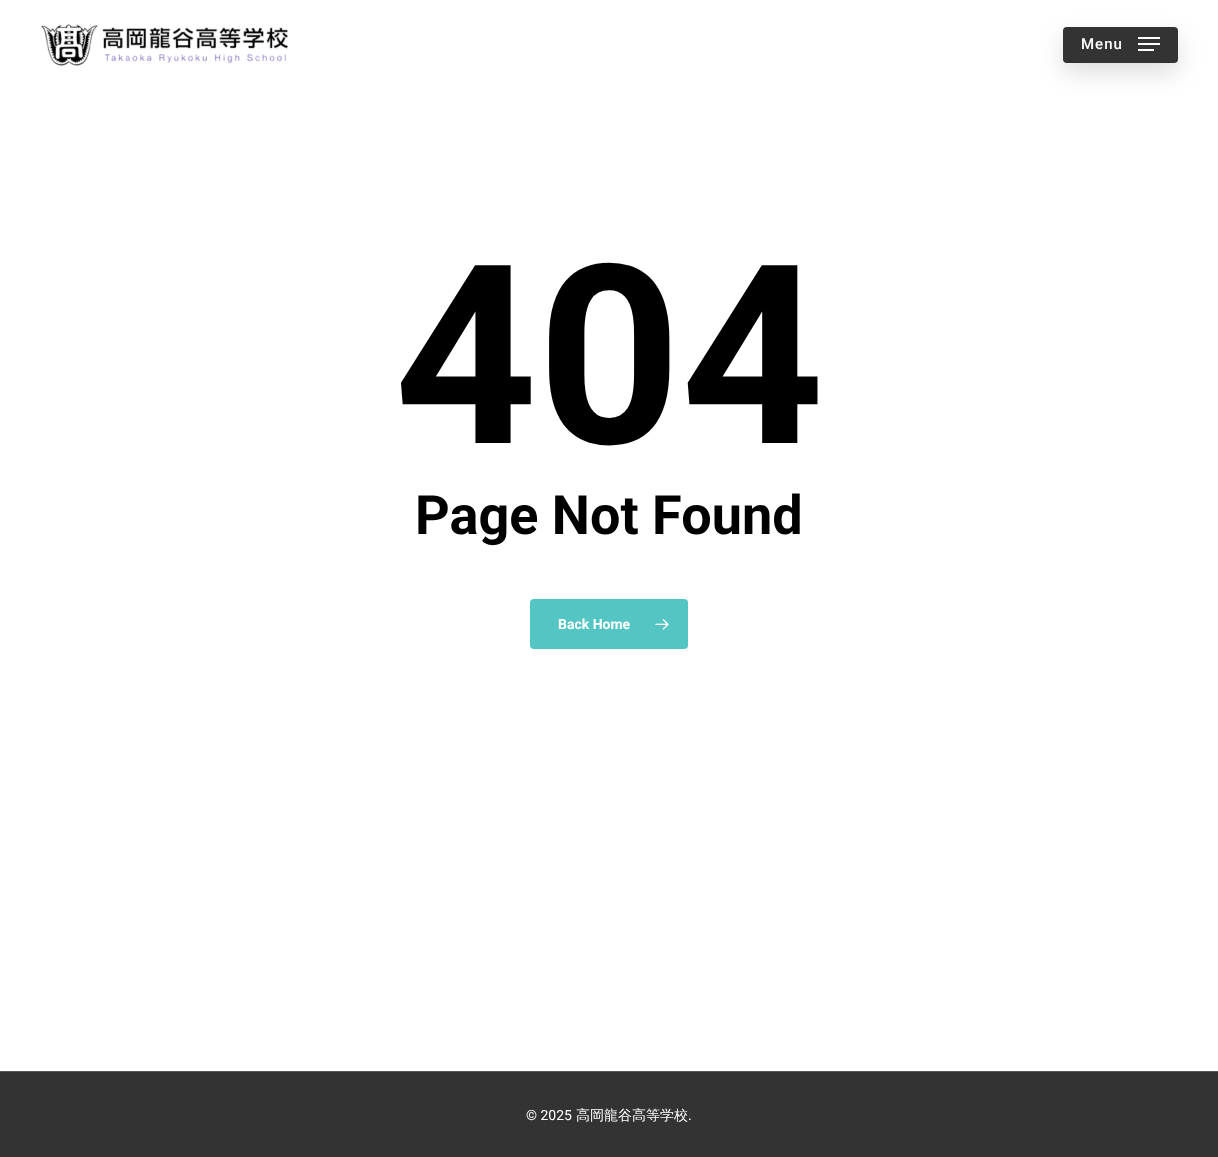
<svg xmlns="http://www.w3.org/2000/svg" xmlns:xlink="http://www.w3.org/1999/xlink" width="1218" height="1157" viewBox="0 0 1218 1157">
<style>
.cls-1{font:500 15px Roboto;letter-spacing:1px;fill:#ffffff}
.cls-2{font:bold 250px Roboto;fill:#000000}
.cls-3{font:bold 54px Roboto;fill:#000000}
.cls-4{font:bold 14px Roboto;fill:#ffffff}
.cls-5{font:14px Heebo;fill:#ffffff}
.cls-6{font:500 14px WenQuanYi Zen Hei;fill:#ffffff}
</style>
<rect width="100%" height="100%" fill="#ffffff"/>
<image xlink:href="image0.png" x="41" y="24" width="247" height="42"/>
<rect fill="#000000" fill-opacity="0.13" filter="blur(12.5px)" x="1063" y="37" width="115" height="36" rx="4"/>
<rect fill="#333333" x="1063" y="27" width="115" height="36" rx="4"/>
<rect fill="#ffffff" x="1138" y="37" width="22" height="2"/>
<rect fill="#ffffff" x="1138" y="49" width="16" height="2"/>
<rect fill="#ffffff" x="1138" y="43" width="22" height="2"/>
<rect fill="#53c6c4" x="530" y="599" width="158" height="50" rx="4"/>
<image xlink:href="image1.png" x="655" y="619" width="14" height="11"/>
<rect fill="#333333" x="0" y="1072" width="1218" height="85"/>
<rect fill="#585858" x="0" y="1071" width="1218" height="1"/>
<text class="cls-1" x="1081" y="49">Menu</text>
<text class="cls-2" x="394" y="443">404</text>
<text class="cls-3" x="415" y="534">Page Not Found</text>
<text class="cls-4" x="558" y="629">Back Home</text>
<text class="cls-5" x="526" y="1120">© 2025</text>
<text class="cls-6" x="576" y="1120">高岡龍谷高等学校</text>
<text class="cls-5" x="688" y="1120">.</text>
</svg>
